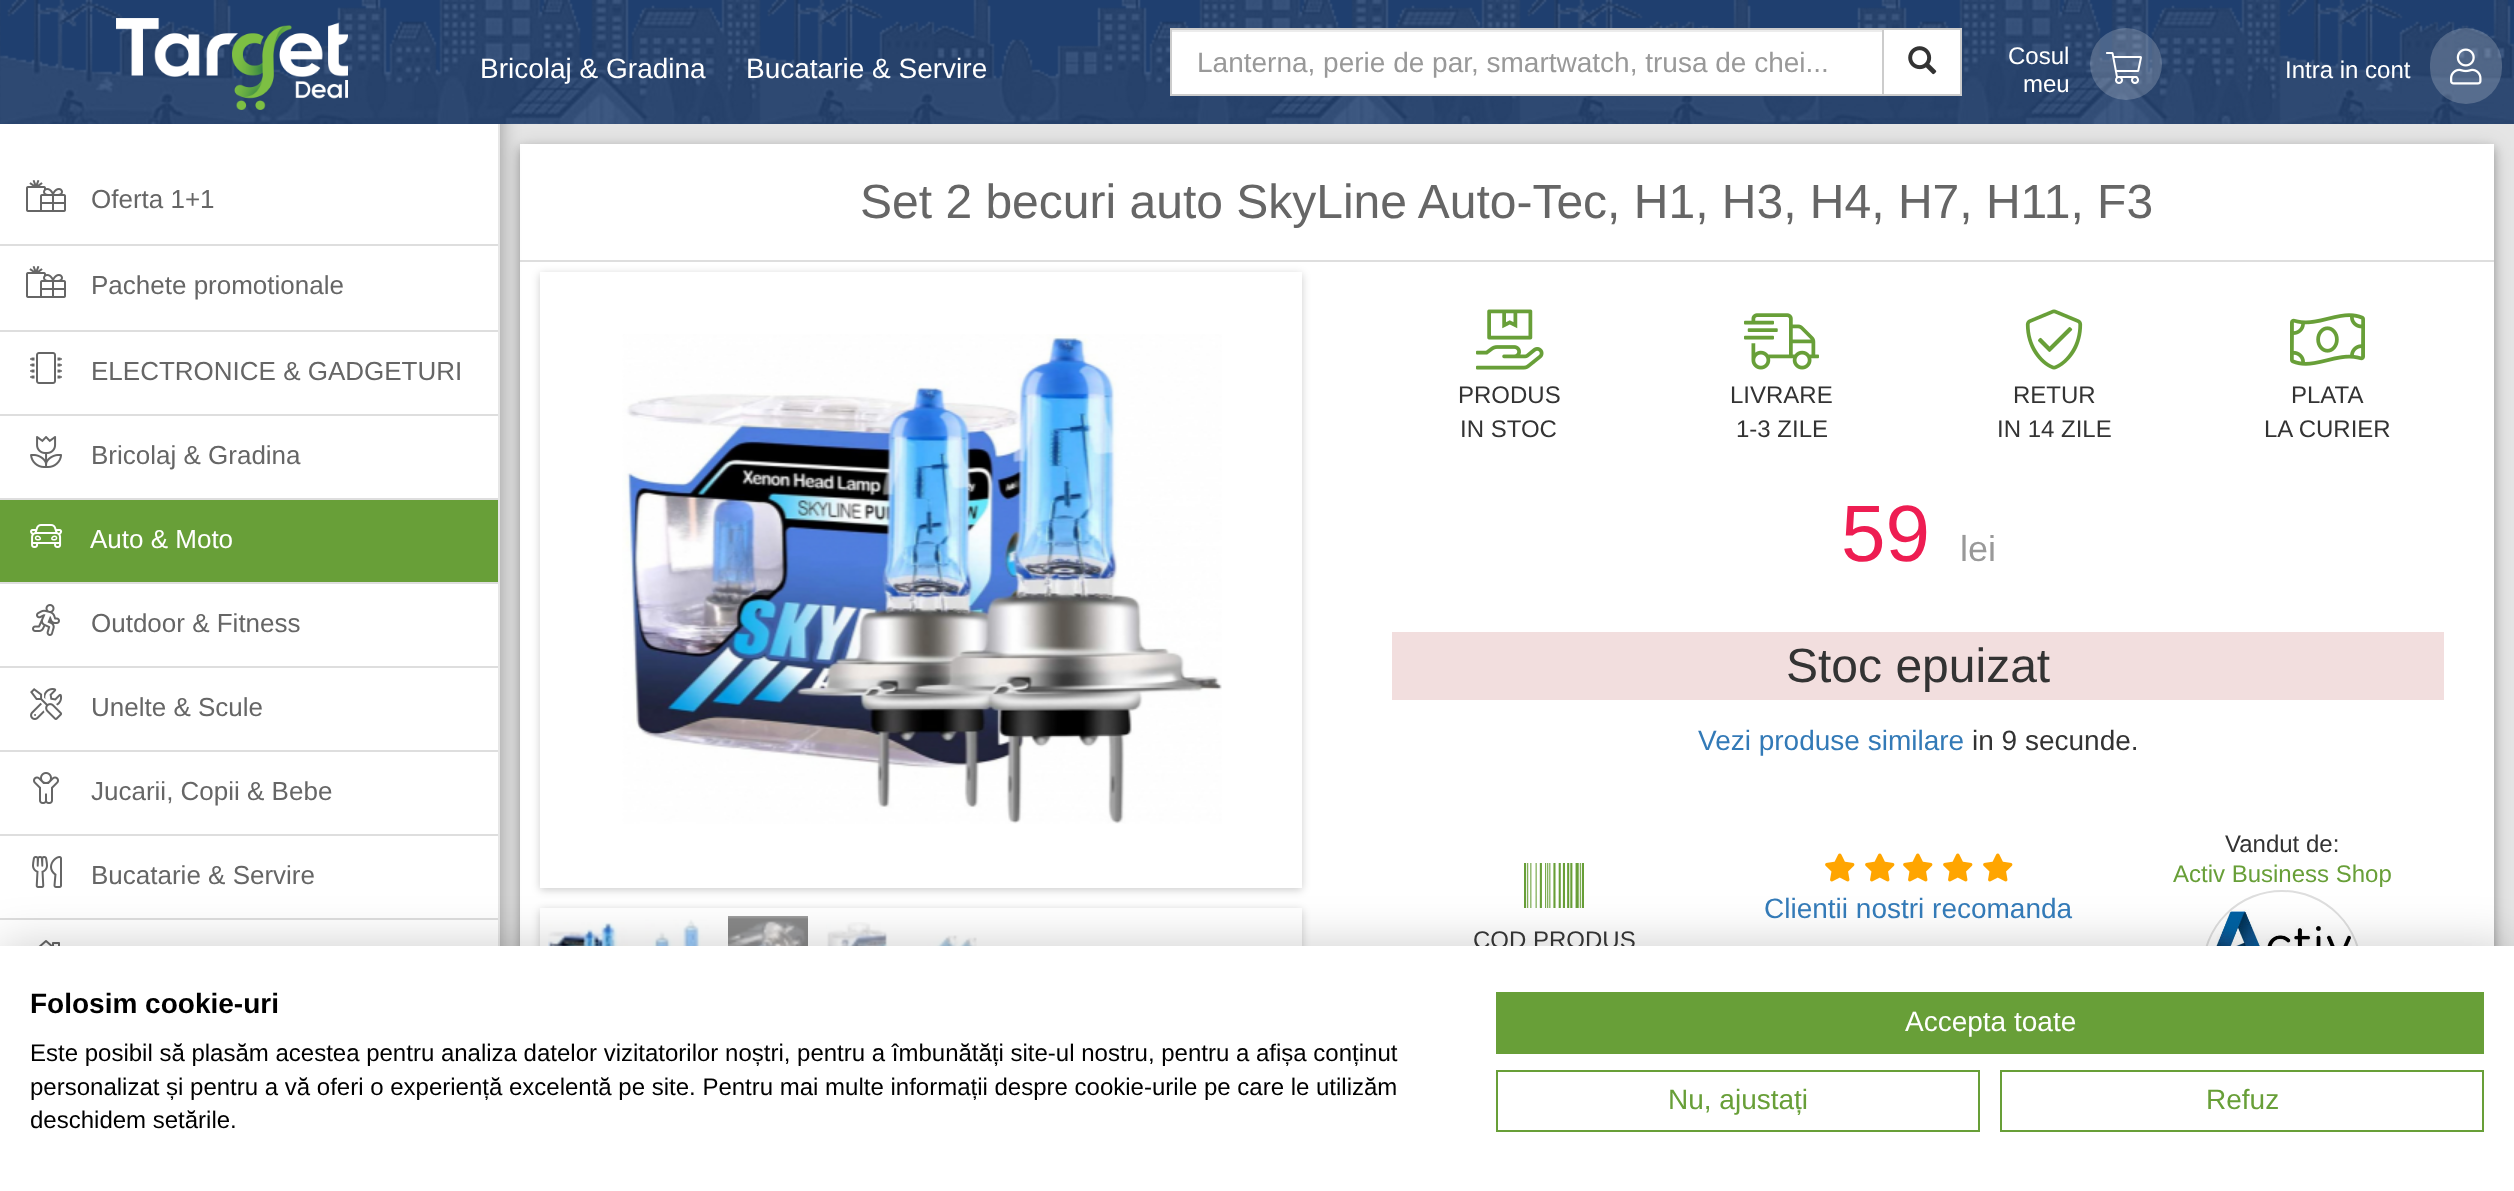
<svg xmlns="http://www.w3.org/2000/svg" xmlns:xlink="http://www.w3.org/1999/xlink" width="2514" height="1191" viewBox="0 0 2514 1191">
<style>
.cls-1{font:28px Liberation Sans;fill:#ffffff}
.cls-2{font:28px Liberation Sans;fill:#999999}
.cls-3{font:24px Liberation Sans;fill:#ffffff}
.cls-4{font:26px Liberation Sans;fill:#666666}
.cls-5{font:26px Liberation Sans;fill:#ffffff}
.cls-6{font:48px Liberation Sans;fill:#666666}
.cls-7{font:24px Liberation Sans;fill:#333333}
.cls-8{font:80px Liberation Sans;fill:#ee1d52}
.cls-9{font:36px Liberation Sans;fill:#999999}
.cls-10{font:48px Liberation Sans;fill:#333333}
.cls-11{font:28px Liberation Sans;fill:#337ab7}
.cls-12{font:28px Liberation Sans;fill:#333333}
.cls-13{font:24px Liberation Sans;fill:#689f38}
.cls-14{font:bold 28px Liberation Sans;fill:#000000}
.cls-15{font:24px Liberation Sans;fill:#000000}
.cls-16{font:28px Liberation Sans;fill:#689f38}
</style>
<defs>
<clipPath id="clip1"><path d="M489 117H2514V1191H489ZM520 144H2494V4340H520Z" clip-rule="evenodd"/></clipPath>
<clipPath id="clip2"><path d="M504 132H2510V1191H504ZM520 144H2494V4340H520Z" clip-rule="evenodd"/></clipPath>
<clipPath id="clip3"><path d="M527 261H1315V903H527ZM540 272H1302V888H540Z" clip-rule="evenodd"/></clipPath>
<clipPath id="clip4"><path d="M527 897H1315V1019H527ZM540 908H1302V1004H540Z" clip-rule="evenodd"/></clipPath>
</defs>
<rect width="100%" height="100%" fill="#e5e5e5"/>
<rect fill="#ffffff" x="520" y="144" width="1974" height="802"/>
<rect fill="#dedede" x="520" y="260" width="1974" height="2"/>
<rect fill="#000000" fill-opacity="0.35" filter="blur(10px)" x="0" y="2" width="500" height="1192"/>
<g clip-path="url(#clip1)">
<rect fill="#000000" fill-opacity="0.16" filter="blur(10px)" x="520" y="148" width="1974" height="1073"/>
</g>
<rect fill="#1f3f6f" x="0" y="0" width="2514" height="124"/>
<image xlink:href="image0.png" x="0" y="0" width="2514" height="124"/>
<image xlink:href="image1.png" x="116" y="18" width="232" height="92"/>
<rect fill="#ffffff" x="1172" y="32" width="710" height="62"/>
<rect fill="#ececec" x="1172" y="30" width="710" height="2"/>
<rect fill="#ffffff" stroke="#cccccc" stroke-width="2" x="1883" y="29" width="78" height="66"/>
<rect fill="none" stroke="#cccccc" stroke-width="2" x="1171" y="29" width="712" height="66"/>
<image xlink:href="image2.png" x="1908" y="46" width="29" height="29"/>
<circle fill="#ffffff" fill-opacity="0.2" cx="2126" cy="64" r="36"/>
<image xlink:href="image3.png" x="2106" y="52" width="36" height="32"/>
<rect fill="#ffffff" fill-opacity="0.2" x="2430" y="28" width="72" height="76" rx="36"/>
<image xlink:href="image4.png" x="2450" y="48" width="32" height="37"/>
<rect fill="#ffffff" x="0" y="124" width="498" height="822"/>
<rect fill="#e7e7e7" x="498" y="124" width="2" height="822"/>
<rect fill="#dedede" x="0" y="244" width="498" height="2"/>
<image xlink:href="image5.png" x="26" y="180" width="40" height="32"/>
<rect fill="#dedede" x="0" y="330" width="498" height="2"/>
<image xlink:href="image5.png" x="26" y="266" width="40" height="32"/>
<rect fill="#dedede" x="0" y="414" width="498" height="2"/>
<image xlink:href="image6.png" x="30" y="352" width="32" height="32"/>
<rect fill="#dedede" x="0" y="498" width="498" height="2"/>
<image xlink:href="image7.png" x="30" y="436" width="32" height="32"/>
<rect fill="#dedede" x="0" y="582" width="498" height="2"/>
<rect fill="#689f38" x="0" y="500" width="498" height="82"/>
<image xlink:href="image8.png" x="30" y="524" width="33" height="24"/>
<rect fill="#dedede" x="0" y="666" width="498" height="2"/>
<image xlink:href="image9.png" x="32" y="604" width="28" height="32"/>
<rect fill="#dedede" x="0" y="750" width="498" height="2"/>
<image xlink:href="image10.png" x="30" y="688" width="33" height="32"/>
<rect fill="#dedede" x="0" y="834" width="498" height="2"/>
<image xlink:href="image11.png" x="33" y="772" width="26" height="32"/>
<rect fill="#dedede" x="0" y="918" width="498" height="2"/>
<image xlink:href="image12.png" x="32" y="856" width="30" height="32"/>
<image xlink:href="image13.png" x="38" y="940" width="22" height="6"/>
<g clip-path="url(#clip2)">
<rect fill="#000000" fill-opacity="0.26" filter="blur(5px)" x="520" y="148" width="1974" height="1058"/>
</g>
<g clip-path="url(#clip3)">
<rect fill="#000000" fill-opacity="0.2" filter="blur(4px)" x="540" y="274" width="762" height="616"/>
</g>
<image xlink:href="image14.png" x="622" y="334" width="600" height="490"/>
<g clip-path="url(#clip4)">
<rect fill="#000000" fill-opacity="0.2" filter="blur(4px)" x="540" y="910" width="762" height="96"/>
</g>
<image xlink:href="image15.png" x="548" y="922" width="80" height="24"/>
<image xlink:href="image16.png" x="645" y="919" width="66" height="27"/>
<image xlink:href="image17.png" x="728" y="916" width="80" height="30"/>
<image xlink:href="image18.png" x="826" y="922" width="62" height="24"/>
<image xlink:href="image19.png" x="918" y="935" width="59" height="11"/>
<image xlink:href="image20.png" x="1476" y="309" width="68" height="61"/>
<image xlink:href="image21.png" x="1744" y="313" width="75" height="57"/>
<image xlink:href="image22.png" x="2025" y="309" width="58" height="61"/>
<image xlink:href="image23.png" x="2290" y="313" width="75" height="53"/>
<rect fill="#f2dede" x="1392" y="632" width="1052" height="68"/>
<image xlink:href="image24.png" x="2212" y="909" width="140" height="37"/>
<circle fill="none" stroke="#dedede" stroke-width="2" cx="2282" cy="970" r="79"/>
<image xlink:href="image25.png" x="1825" y="853" width="30" height="29"/>
<image xlink:href="image25.png" x="1865" y="853" width="30" height="29"/>
<image xlink:href="image25.png" x="1903" y="853" width="30" height="29"/>
<image xlink:href="image25.png" x="1943" y="853" width="30" height="29"/>
<image xlink:href="image25.png" x="1983" y="853" width="30" height="29"/>
<image xlink:href="image26.png" x="1524" y="863" width="60" height="45"/>
<rect fill="#000000" fill-opacity="0.2" filter="blur(24px)" x="0" y="946" width="2514" height="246"/>
<text class="cls-1" x="480" y="78">Bricolaj &amp; Gradina</text>
<text class="cls-1" x="746" y="78">Bucatarie &amp; Servire</text>
<text class="cls-2" x="1197" y="72">Lanterna, perie de par, smartwatch, trusa de chei...</text>
<text class="cls-3" x="2008" y="64">Cosul</text>
<text class="cls-3" x="2023" y="92">meu</text>
<text class="cls-3" x="2285" y="78">Intra in cont</text>
<text class="cls-4" x="91" y="208">Oferta 1+1</text>
<text class="cls-4" x="91" y="294">Pachete promotionale</text>
<text class="cls-4" x="91" y="380">ELECTRONICE &amp; GADGETURI</text>
<text class="cls-4" x="91" y="464">Bricolaj &amp; Gradina</text>
<text class="cls-5" x="90" y="548">Auto &amp; Moto</text>
<text class="cls-4" x="91" y="632">Outdoor &amp; Fitness</text>
<text class="cls-4" x="91" y="716">Unelte &amp; Scule</text>
<text class="cls-4" x="91" y="800">Jucarii, Copii &amp; Bebe</text>
<text class="cls-4" x="91" y="884">Bucatarie &amp; Servire</text>
<text class="cls-6" x="860" y="218">Set 2 becuri auto SkyLine Auto-Tec, H1, H3, H4, H7, H11, F3</text>
<text class="cls-7" x="1458" y="403">PRODUS</text>
<text class="cls-7" x="1460" y="437">IN STOC</text>
<text class="cls-7" x="1730" y="403">LIVRARE</text>
<text class="cls-7" x="1736" y="437">1-3 ZILE</text>
<text class="cls-7" x="2013" y="403">RETUR</text>
<text class="cls-7" x="1997" y="437">IN 14 ZILE</text>
<text class="cls-7" x="2291" y="403">PLATA</text>
<text class="cls-7" x="2264" y="437">LA CURIER</text>
<text class="cls-8" x="1841" y="561">59</text>
<text class="cls-9" x="1960" y="561">lei</text>
<text class="cls-10" x="1786" y="682">Stoc epuizat</text>
<text class="cls-11" x="1698" y="750">Vezi produse similare</text>
<text class="cls-12" x="1972" y="750">in 9 secunde.</text>
<text class="cls-7" x="2225" y="852">Vandut de:</text>
<text class="cls-13" x="2173" y="882">Activ Business Shop</text>
<text class="cls-11" x="1764" y="918">Clientii nostri recomanda</text>
<text class="cls-7" x="1473" y="948">COD PRODUS</text>
<rect fill="#ffffff" x="0" y="946" width="2514" height="245"/>
<text class="cls-14" x="30" y="1013">Folosim cookie-uri</text>
<text class="cls-15"><tspan x="30" y="1061">Este posibil să plasăm acestea pentru analiza datelor vizitatorilor noștri, pentru a îmbunătăți site-ul nostru, pentru a afișa conținut</tspan><tspan x="30" y="1095">personalizat și pentru a vă oferi o experiență excelentă pe site. Pentru mai multe informații despre cookie-urile pe care le utilizăm</tspan><tspan x="30" y="1128">deschidem setările.</tspan></text>
<rect fill="#689f38" x="1496" y="992" width="988" height="62"/>
<text class="cls-1" x="1905" y="1031">Accepta toate</text>
<rect fill="none" stroke="#689f38" stroke-width="2" x="1497" y="1071" width="482" height="60"/>
<text class="cls-16" x="1668" y="1109">Nu, ajustați</text>
<rect fill="none" stroke="#689f38" stroke-width="2" x="2001" y="1071" width="482" height="60"/>
<text class="cls-16" x="2206" y="1109">Refuz</text>
</svg>
